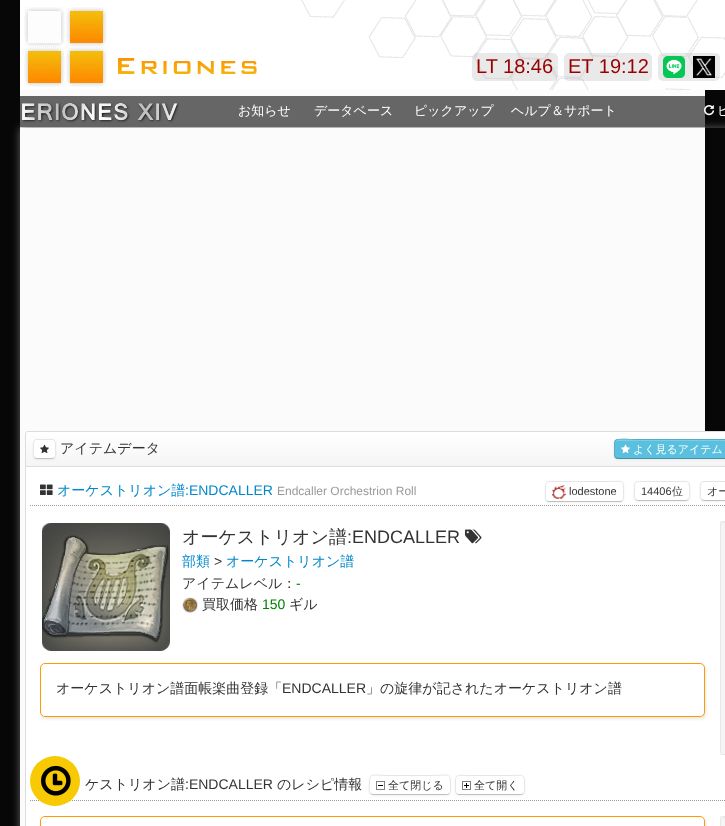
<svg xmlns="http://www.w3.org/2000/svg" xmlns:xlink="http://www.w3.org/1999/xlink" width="725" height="826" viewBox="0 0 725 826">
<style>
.cls-1{font:20px Liberation Sans;fill:#990000}
.cls-2{font:500 13px WenQuanYi Zen Hei;fill:#ffffff}
.cls-3{font:500 14px WenQuanYi Zen Hei;fill:#333333}
.cls-4{font:500 11px WenQuanYi Zen Hei;fill:#ffffff}
.cls-5{font:500 14px WenQuanYi Zen Hei;fill:#0088cc}
.cls-6{font:14px Liberation Sans;fill:#0088cc}
.cls-7{font:12px Liberation Sans;fill:#999999}
.cls-8{font:11px Liberation Sans;fill:#333333}
.cls-9{font:500 11px WenQuanYi Zen Hei;fill:#333333}
.cls-10{font:500 18px WenQuanYi Zen Hei;fill:#333333}
.cls-11{font:18px Liberation Sans;fill:#333333}
.cls-12{font:14px Liberation Sans;fill:#333333}
.cls-13{font:14px Liberation Sans;fill:#008000}
</style>
<defs>
<clipPath id="clip1"><path d="M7 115H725V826H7ZM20 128H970V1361H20Z" clip-rule="evenodd"/></clipPath>
<linearGradient id="g1" gradientUnits="userSpaceOnUse" x1="495" y1="432" x2="495" y2="466"><stop offset="0" stop-color="#ffffff"/><stop offset="1" stop-color="#f5f5f5"/></linearGradient>
</defs>
<rect width="100%" height="100%" fill="#070707"/>
<rect fill="#ffffff" x="20" y="0" width="281" height="90"/>
<image xlink:href="image0.png" x="301" y="0" width="424" height="90"/>
<image xlink:href="image1.png" x="24" y="7" width="233" height="80"/>
<image xlink:href="image2.png" x="472" y="53" width="86" height="28"/>
<image xlink:href="image3.png" x="564" y="53" width="88" height="28"/>
<image xlink:href="image4.png" x="658" y="53" width="62" height="28"/>
<image xlink:href="image5.png" x="663" y="56" width="22" height="22"/>
<image xlink:href="image6.png" x="693" y="56" width="22" height="22"/>
<rect fill="#fbfbfb" x="20" y="90" width="685" height="736"/>
<rect fill="#666666" x="20" y="96" width="685" height="31"/>
<g clip-path="url(#clip1)">
<rect fill="#616161" filter="blur(4px)" x="20" y="128" width="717" height="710"/>
</g>
<image xlink:href="image7.png" x="21" y="102" width="158" height="21"/>
<image xlink:href="image8.png" x="704" y="105" width="11" height="11"/>
<rect fill="#ffffff" x="26" y="467" width="699" height="359"/>
<path fill="none" stroke="#999999" stroke-dasharray="1 1" d="M30 800.5H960"/>
<circle fill="#f7ca04" cx="55" cy="781" r="25"/>
<image xlink:href="image9.png" x="41" y="765" width="30" height="31"/>
<rect fill="url(#g1)" x="25" y="432" width="700" height="34"/>
<path fill="none" stroke="#dddddd" d="M28 431.5H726C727.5 431.5 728.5 432.5 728.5 434V466.5H25.5V434C25.5 432.5 26.5 431.5 28 431.5Z"/>
<rect fill="#000000" fill-opacity="0.05" filter="blur(1px)" x="33" y="440" width="23" height="20" rx="4"/>
<rect fill="#ffffff" x="33" y="439" width="23" height="20" rx="4"/>
<path fill="none" stroke="#000000" stroke-opacity="0.25" d="M54.5 457.5C54 458 53 458.5 52 458.5H37C36 458.5 35 458 34.5 457.5"/>
<path fill="none" stroke="#000000" stroke-opacity="0.1" d="M34.5 457.5C32.5 455.5 33.5 451 33.5 449C33.5 438 33.5 439.5 44.5 439.5C55.5 439.5 55.5 438 55.5 449C55.5 451 56.5 455.5 54.5 457.5"/>
<image xlink:href="image10.png" x="40" y="444" width="9" height="10"/>
<rect fill="#000000" fill-opacity="0.05" filter="blur(1px)" x="614" y="440" width="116" height="20" rx="4"/>
<rect fill="#5bc0de" x="614" y="439" width="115" height="20" rx="4"/>
<path fill="#7ccde5" d="M618 441H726C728 441 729 442 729 444C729 442 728 440 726 440H636C634 440 615 435 615 444C615 442 616 441 618 441Z"/>
<path fill="none" stroke="#000000" stroke-opacity="0.25" d="M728.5 457.5L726 458.5H617.5L615.5 457.5"/>
<path fill="none" stroke="#000000" stroke-opacity="0.1" d="M615.5 457.5C613.5 455.5 614.5 451.5 614.5 449C614.5 446 613 439.5 618 439.5H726C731 439.5 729.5 446 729.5 449C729.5 451.5 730.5 455.5 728.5 457.5"/>
<image xlink:href="image11.png" x="621" y="444" width="9" height="10"/>
<path fill="#dddddd" fill-rule="evenodd" d="M25 467H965V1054C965 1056 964 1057 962 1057H28C26 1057 25 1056 25 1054ZM26 467H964V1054C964 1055 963 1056 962 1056H28C27 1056 26 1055 26 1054Z"/>
<path fill="none" stroke="#999999" stroke-dasharray="1 1" d="M30 505.5H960"/>
<image xlink:href="image12.png" x="40" y="484" width="13" height="11"/>
<rect fill="#000000" fill-opacity="0.05" filter="blur(1px)" x="545" y="482" width="79" height="21" rx="4"/>
<rect fill="#ffffff" x="545" y="481" width="79" height="21" rx="4"/>
<path fill="none" stroke="#bfbfbf" d="M622.5 500.5C622 501 621 501.5 620 501.5H549C548 501.5 547 501 546.5 500.5"/>
<path fill="none" stroke="#e5e5e5" d="M546.5 500.5C545 499 545.5 496 545.5 493.5C545.5 479 544.5 481.5 561 481.5H608C624.5 481.5 623.5 479 623.5 493.5C623.5 496 624 499 622.5 500.5"/>
<image xlink:href="image13.png" x="552" y="485" width="14" height="14"/>
<rect fill="#000000" fill-opacity="0.05" filter="blur(1px)" x="634" y="482" width="56" height="20" rx="4"/>
<rect fill="#ffffff" x="634" y="481" width="56" height="20" rx="4"/>
<path fill="none" stroke="#bfbfbf" d="M688.5 499.5L686.5 500.5H637.5L635.5 499.5"/>
<path fill="none" stroke="#e5e5e5" d="M635.5 499.5C633.5 497.5 634.5 493.5 634.5 491C634.5 480 634.5 481.5 646 481.5H678C687.5 481.5 689.5 479.5 689.5 489C689.5 491.5 690.5 497.5 688.5 499.5"/>
<rect fill="#000000" fill-opacity="0.05" filter="blur(1px)" x="700" y="482" width="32" height="20" rx="4"/>
<rect fill="#ffffff" x="700" y="481" width="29" height="20" rx="4"/>
<path fill="none" stroke="#bfbfbf" d="M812.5 499.5L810.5 500.5H721.5H704L701.5 499.5"/>
<path fill="none" stroke="#e5e5e5" d="M701.5 499.5C699.5 497.5 700.5 493.5 700.5 491C700.5 488 699 481.5 704 481.5H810C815 481.5 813.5 488 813.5 491C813.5 493.5 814.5 497.5 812.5 499.5"/>
<image xlink:href="image14.png" x="42" y="523" width="128" height="128"/>
<image xlink:href="image15.png" x="465" y="529" width="17" height="15"/>
<image xlink:href="image16.png" x="182" y="597" width="16" height="16"/>
<rect fill="#e7e7e7" filter="blur(1.5px)" x="41" y="665" width="665" height="54" rx="5"/>
<rect fill="#ffffff" stroke="#ff9900" x="40.5" y="663.5" width="664" height="53" rx="4.5"/>
<rect fill="#f5f5f5" x="720" y="521" width="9" height="234" rx="4"/>
<path fill="#e9e9e9" d="M724 523H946C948 523 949 524 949 526V525C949 523 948 522 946 522H724C722 522 721 523 721 525V526C721 524 722 523 724 523Z"/>
<rect fill="none" stroke="#000000" stroke-opacity="0.05" x="720.5" y="521.5" width="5" height="233"/>
<rect fill="#000000" fill-opacity="0.05" filter="blur(1px)" x="369" y="776" width="82" height="20" rx="4"/>
<rect fill="#ffffff" x="369" y="775" width="82" height="20" rx="4"/>
<path fill="none" stroke="#bfbfbf" d="M449.5 793.5L447.5 794.5H372.5L370.5 793.5"/>
<path fill="none" stroke="#e5e5e5" d="M370.5 793.5C368.5 791.5 369.5 785.5 369.5 783C369.5 772 373 775.5 385.5 775.5H434.5C447 775.5 450.5 772 450.5 783C450.5 785.5 451.5 791.5 449.5 793.5"/>
<image xlink:href="image17.png" x="376" y="781" width="9" height="9"/>
<rect fill="#000000" fill-opacity="0.05" filter="blur(1px)" x="455" y="776" width="70" height="20" rx="4"/>
<rect fill="#ffffff" x="455" y="775" width="70" height="20" rx="4"/>
<path fill="none" stroke="#bfbfbf" d="M523.5 793.5L521.5 794.5H458.5L456.5 793.5"/>
<path fill="none" stroke="#e5e5e5" d="M456.5 793.5C455 792 455.5 789 455.5 787C455.5 773.5 454.5 775.5 469.5 775.5H510.5C525.5 775.5 524.5 773.5 524.5 787C524.5 789 525 792 523.5 793.5"/>
<image xlink:href="image18.png" x="462" y="781" width="9" height="9"/>
<rect fill="#e7e7e7" filter="blur(1.5px)" x="41" y="818" width="665" height="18" rx="5"/>
<rect fill="#ffffff" stroke="#ff9900" x="40.5" y="816.5" width="664" height="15" rx="4.5"/>
<rect fill="#f5f5f5" x="720" y="816" width="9" height="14" rx="4"/>
<path fill="#e9e9e9" d="M724 818H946C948 818 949 819 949 821V820C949 818 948 817 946 817H724C722 817 721 818 721 820V821C721 819 722 818 724 818Z"/>
<rect fill="none" stroke="#000000" stroke-opacity="0.05" x="720.5" y="816.5" width="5" height="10"/>
<text class="cls-1" x="476" y="73">LT 18:46</text>
<text class="cls-1" x="568" y="73">ET 19:12</text>
<text class="cls-2" x="238" y="115">お知らせ</text>
<text class="cls-2" x="314" y="115">データベース</text>
<text class="cls-2" x="414" y="115">ピックアップ</text>
<text class="cls-2" x="511" y="115">ヘルプ＆サポート</text>
<text class="cls-2" x="717" y="115">ヒ</text>
<text class="cls-3" x="60" y="453">アイテムデータ</text>
<text class="cls-4" x="633" y="453">よく見るアイテム</text>
<text class="cls-5" x="57" y="495">オーケストリオン譜</text>
<text class="cls-6" x="185" y="495">:ENDCALLER</text>
<text class="cls-7" x="277" y="495">Endcaller Orchestrion Roll</text>
<text class="cls-8" x="569" y="495">lodestone</text>
<text class="cls-8" x="641" y="495">14406</text>
<text class="cls-9" x="672" y="495">位</text>
<text class="cls-9" x="707" y="495">オー</text>
<text class="cls-10" x="182" y="543">オーケストリオン譜</text>
<text class="cls-11" x="347" y="543">:ENDCALLER</text>
<text class="cls-5" x="182" y="566">部類</text>
<text class="cls-12" x="214" y="566">&gt;</text>
<text class="cls-5" x="226" y="566">オーケストリオン譜</text>
<text class="cls-3" x="182" y="588">アイテムレベル：</text>
<text class="cls-13" x="296" y="588">-</text>
<text class="cls-3" x="202" y="609">買取価格</text>
<text class="cls-13" x="262" y="609">150</text>
<text class="cls-3" x="289" y="609">ギル</text>
<text class="cls-3" x="56" y="693">オーケストリオン譜面帳楽曲登録「</text>
<text class="cls-12" x="282" y="693">ENDCALLER</text>
<text class="cls-3" x="366" y="693">」の旋律が記されたオーケストリオン譜</text>
<text class="cls-3" x="85" y="789">ケストリオン譜</text>
<text class="cls-12" x="185" y="789">:ENDCALLER</text>
<text class="cls-3" x="277" y="789">のレシピ情報</text>
<text class="cls-9" x="388" y="789">全て閉じる</text>
<text class="cls-9" x="474" y="789">全て開く</text>
</svg>
